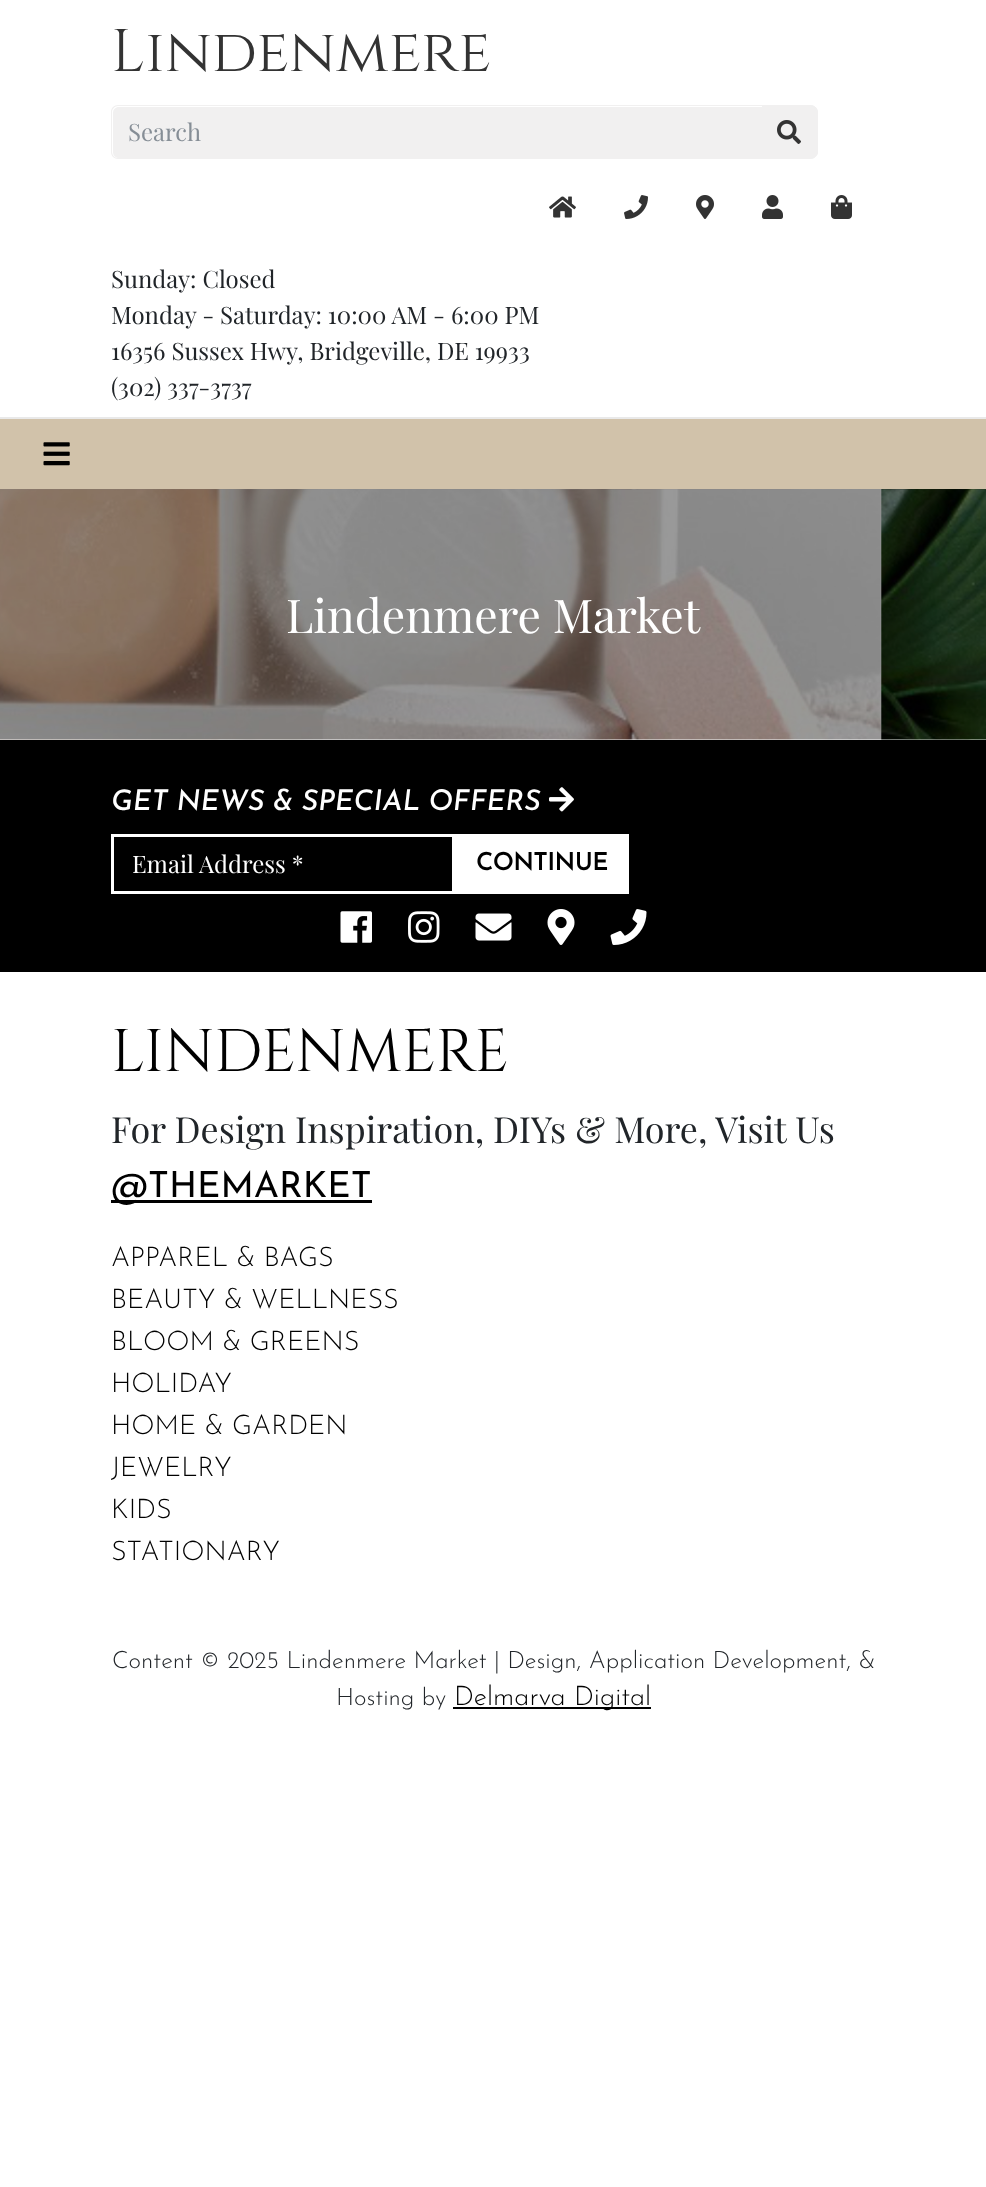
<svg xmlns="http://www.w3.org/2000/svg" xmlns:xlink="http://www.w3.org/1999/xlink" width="986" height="2187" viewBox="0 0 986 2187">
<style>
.cls-1{font:60px Cinzel;fill:#333333}
.cls-2{font:24px Playfair Display;fill:#868e96}
.cls-3{font:24px Playfair Display;fill:#212529}
.cls-4{font:46.5px Playfair Display;fill:#ffffff}
.cls-5{font:italic 100 28.5px Josefin Sans;fill:#ffffff}
.cls-6{font:24px Playfair Display;fill:#ffffff}
.cls-7{font:bold 24px Josefin Sans;fill:#000000}
.cls-8{font:60px Cinzel;fill:#000000}
.cls-9{font:36px Playfair Display;fill:#212529}
.cls-10{font:36px Josefin Sans;fill:#000000}
.cls-11{font:300 27px Josefin Sans;fill:#000000}
.cls-12{font:300 24px Josefin Sans;fill:#212529}
</style>
<rect width="100%" height="100%" fill="#ffffff"/>
<rect fill="#e9e9e9" x="0" y="417" width="986" height="2"/>
<path fill="#f1f0f0" d="M119 107H762V158H119C115.5 158 113 155.5 113 152V113C113 109.5 115.5 107 119 107Z"/>
<path fill="#f1f0f0" fill-rule="evenodd" d="M118 105H762V159H118C114 159 111 156 111 152V112C111 108 114 105 118 105ZM118 106H762V158H118C115 158 112 155 112 152V112C112 109 115 106 118 106Z"/>
<path fill="#f1f0f0" d="M762 105H810C814.5 105 818 108.5 818 113V151C818 155.5 814.5 159 810 159H762Z"/>
<path fill="#f1f0f0" fill-rule="evenodd" d="M762 105H810C814 105 818 108 818 112V152C818 156 814 159 810 159H762ZM762 106H810C813 106 816 109 816 112V152C816 155 813 158 810 158H762Z"/>
<image xlink:href="image0.png" x="777" y="120" width="24" height="24"/>
<image xlink:href="image1.png" x="549" y="196" width="27" height="22"/>
<image xlink:href="image2.png" x="624" y="195" width="24" height="24"/>
<image xlink:href="image3.png" x="696" y="195" width="18" height="24"/>
<image xlink:href="image4.png" x="762" y="195" width="21" height="24"/>
<image xlink:href="image5.png" x="831" y="195" width="21" height="24"/>
<rect fill="#d1c2aa" x="0" y="419" width="986" height="70"/>
<image xlink:href="image6.png" x="43" y="442" width="27" height="24"/>
<image xlink:href="image7.png" x="0" y="489" width="986" height="251"/>
<rect fill="#000000" x="0" y="740" width="986" height="232"/>
<image xlink:href="image8.png" x="549" y="787" width="25" height="25"/>
<rect fill="none" stroke="#ffffff" stroke-width="3" x="112.5" y="835.5" width="341" height="57"/>
<rect fill="#ffffff" x="455" y="834" width="174" height="60"/>
<image xlink:href="image9.png" x="340" y="911" width="32" height="32"/>
<image xlink:href="image10.png" x="408" y="911" width="32" height="32"/>
<image xlink:href="image11.png" x="475" y="913" width="37" height="28"/>
<image xlink:href="image12.png" x="547" y="909" width="28" height="36"/>
<image xlink:href="image13.png" x="610" y="909" width="37" height="36"/>
<rect fill="#000000" x="111" y="1200" width="261" height="3"/>
<rect fill="#000000" x="453" y="1707" width="198" height="2"/>
<text class="cls-1" x="111" y="71">Lindenmere</text>
<text class="cls-2" x="128" y="141">Search</text>
<text class="cls-3"><tspan x="111" y="288">Sunday: Closed</tspan><tspan x="111" y="324">Monday - Saturday: 10:00 AM - 6:00 PM</tspan><tspan x="111" y="360">16356 Sussex Hwy, Bridgeville, DE 19933</tspan><tspan x="111" y="396">(302) 337-3737</tspan></text>
<text class="cls-4" x="286" y="633">Lindenmere Market</text>
<text class="cls-5" x="111" y="810">GET NEWS &amp; SPECIAL OFFERS</text>
<text class="cls-6" x="132" y="873">Email Address *</text>
<text class="cls-7" x="476" y="870">CONTINUE</text>
<text class="cls-8" x="111" y="1071">LINDENMERE</text>
<text class="cls-9" x="111" y="1143">For Design Inspiration, DIYs &amp; More, Visit Us</text>
<text class="cls-10" x="111" y="1197">@THEMARKET</text>
<text class="cls-11"><tspan x="111" y="1266">APPAREL &amp; BAGS</tspan><tspan x="111" y="1308">BEAUTY &amp; WELLNESS</tspan><tspan x="111" y="1350">BLOOM &amp; GREENS</tspan><tspan x="111" y="1392">HOLIDAY</tspan><tspan x="111" y="1434">HOME &amp; GARDEN</tspan><tspan x="111" y="1476">JEWELRY</tspan><tspan x="111" y="1518">KIDS</tspan><tspan x="111" y="1560">STATIONARY</tspan></text>
<text class="cls-12" x="112" y="1668">Content © 2025 Lindenmere Market | Design, Application Development, &amp;</text>
<text class="cls-12" x="336" y="1705">Hosting by</text>
<text class="cls-11" x="454" y="1705">Delmarva Digital</text>
</svg>
